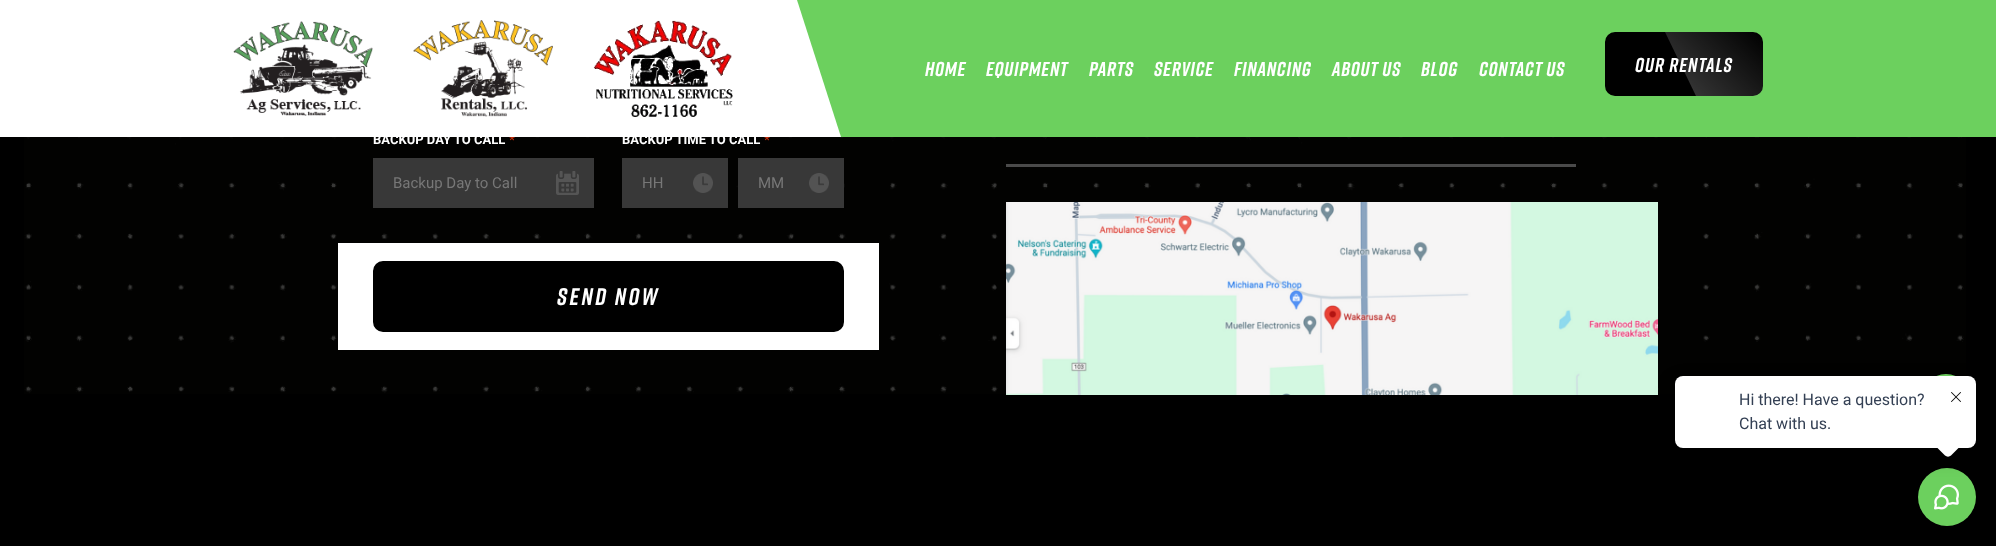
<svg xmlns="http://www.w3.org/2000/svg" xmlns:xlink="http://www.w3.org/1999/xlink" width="1996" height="546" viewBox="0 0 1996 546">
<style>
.cls-1{font:italic bold 20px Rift;letter-spacing:0.75px;fill:#ffffff}
.cls-2{font:italic bold 20px Rift;letter-spacing:1px;fill:#ffffff}
.cls-3{font:bold 13px Roboto;fill:#ffffff}
.cls-4{font:bold 13px Roboto;fill:#c02b0a}
.cls-5{font:15px Roboto;fill:#777777}
.cls-6{font:italic bold 24px Rift;letter-spacing:2.5px;fill:#ffffff}
.cls-7{font:16px Roboto;fill:#344054}
</style>
<defs>
<linearGradient id="g1" gradientUnits="userSpaceOnUse" x1="1674" y1="105" x2="1755" y2="24"><stop offset="0" stop-color="#ffffff" stop-opacity="0.25"/><stop offset="1" stop-color="#ffffff" stop-opacity="0"/></linearGradient>
</defs>
<rect width="100%" height="100%" fill="#000000"/>
<rect fill="#6cd05e" x="797" y="0" width="1199" height="137"/>
<rect fill="#000000" stroke="#000000" stroke-width="2" x="1606" y="33" width="156" height="62" rx="9"/>
<path fill="url(#g1)" d="M1754 96H1696L1665 32H1753C1759 32 1763 36 1763 42V86C1763 91 1759 96 1754 96Z"/>
<image xlink:href="image7.png" x="24" y="137" width="1942" height="257"/>
<rect fill="#383838" x="373" y="158" width="221" height="50"/>
<image xlink:href="image3.png" x="556" y="171" width="23" height="24"/>
<rect fill="#383838" x="622" y="158" width="106" height="50"/>
<image xlink:href="image4.png" x="693" y="173" width="20" height="20"/>
<rect fill="#383838" x="738" y="158" width="106" height="50"/>
<image xlink:href="image5.png" x="809" y="173" width="20" height="20"/>
<rect fill="#ffffff" x="338" y="243" width="541" height="107"/>
<rect fill="#000000" stroke="#000000" stroke-width="2" x="374" y="262" width="469" height="69" rx="9"/>
<rect fill="#4a4a4a" x="1006" y="164" width="570" height="3"/>
<image xlink:href="image6.png" x="1006" y="202" width="652" height="193"/>
<circle fill="#6cd05e" cx="1947" cy="497" r="29"/>
<image xlink:href="image9.png" x="1934" y="484" width="25" height="26"/>
<circle fill="#6fd160" cx="1946" cy="399" r="25"/>
<rect fill="#000000" fill-opacity="0.24" filter="blur(10px)" x="1675" y="384" width="301" height="72" rx="8"/>
<rect fill="#ffffff" x="1675" y="376" width="301" height="72" rx="8"/>
<path fill="#ffffff" d="M1951 432.5L1959.5 441C1961 442.5 1961 445.5 1959.5 447L1951 455.5C1949.5 457 1946.5 457 1945 455.5L1936.5 447C1935 445.5 1935 442.5 1936.5 441L1945 432.5C1946.5 431 1949.5 431 1951 432.5Z"/>
<image xlink:href="image8.png" x="1951" y="392" width="10" height="10"/>
<text class="cls-1" x="925" y="76">Home</text>
<text class="cls-1" x="986" y="76">Equipment</text>
<text class="cls-1" x="1089" y="76">Parts</text>
<text class="cls-1" x="1154" y="76">Service</text>
<text class="cls-1" x="1234" y="76">Financing</text>
<text class="cls-1" x="1332" y="76">About Us</text>
<text class="cls-1" x="1421" y="76">Blog</text>
<text class="cls-1" x="1479" y="76">Contact Us</text>
<text class="cls-2" x="1635" y="72">Our Rentals</text>
<text class="cls-3" x="373" y="144">BACKUP DAY TO CALL</text>
<text class="cls-4" x="509" y="144">*</text>
<text class="cls-5" x="393" y="188">Backup Day to Call</text>
<text class="cls-3" x="622" y="144">BACKUP TIME TO CALL</text>
<text class="cls-4" x="764" y="144">*</text>
<rect fill="#ffffff" x="0" y="0" width="780" height="137"/>
<image xlink:href="image2.png" x="593" y="20" width="140" height="97"/>
<image xlink:href="image1.png" x="413" y="20" width="140" height="97"/>
<image xlink:href="image0.png" x="233" y="21" width="140" height="95"/>
<path fill="#ffffff" d="M736 0H797L841 137H780Z"/>
<text class="cls-5" x="642" y="188">HH</text>
<text class="cls-5" x="758" y="188">MM</text>
<text class="cls-6" x="557" y="305">Send Now</text>
<text class="cls-7"><tspan x="1739" y="405">Hi there! Have a question?</tspan><tspan x="1739" y="429">Chat with us.</tspan></text>
</svg>
